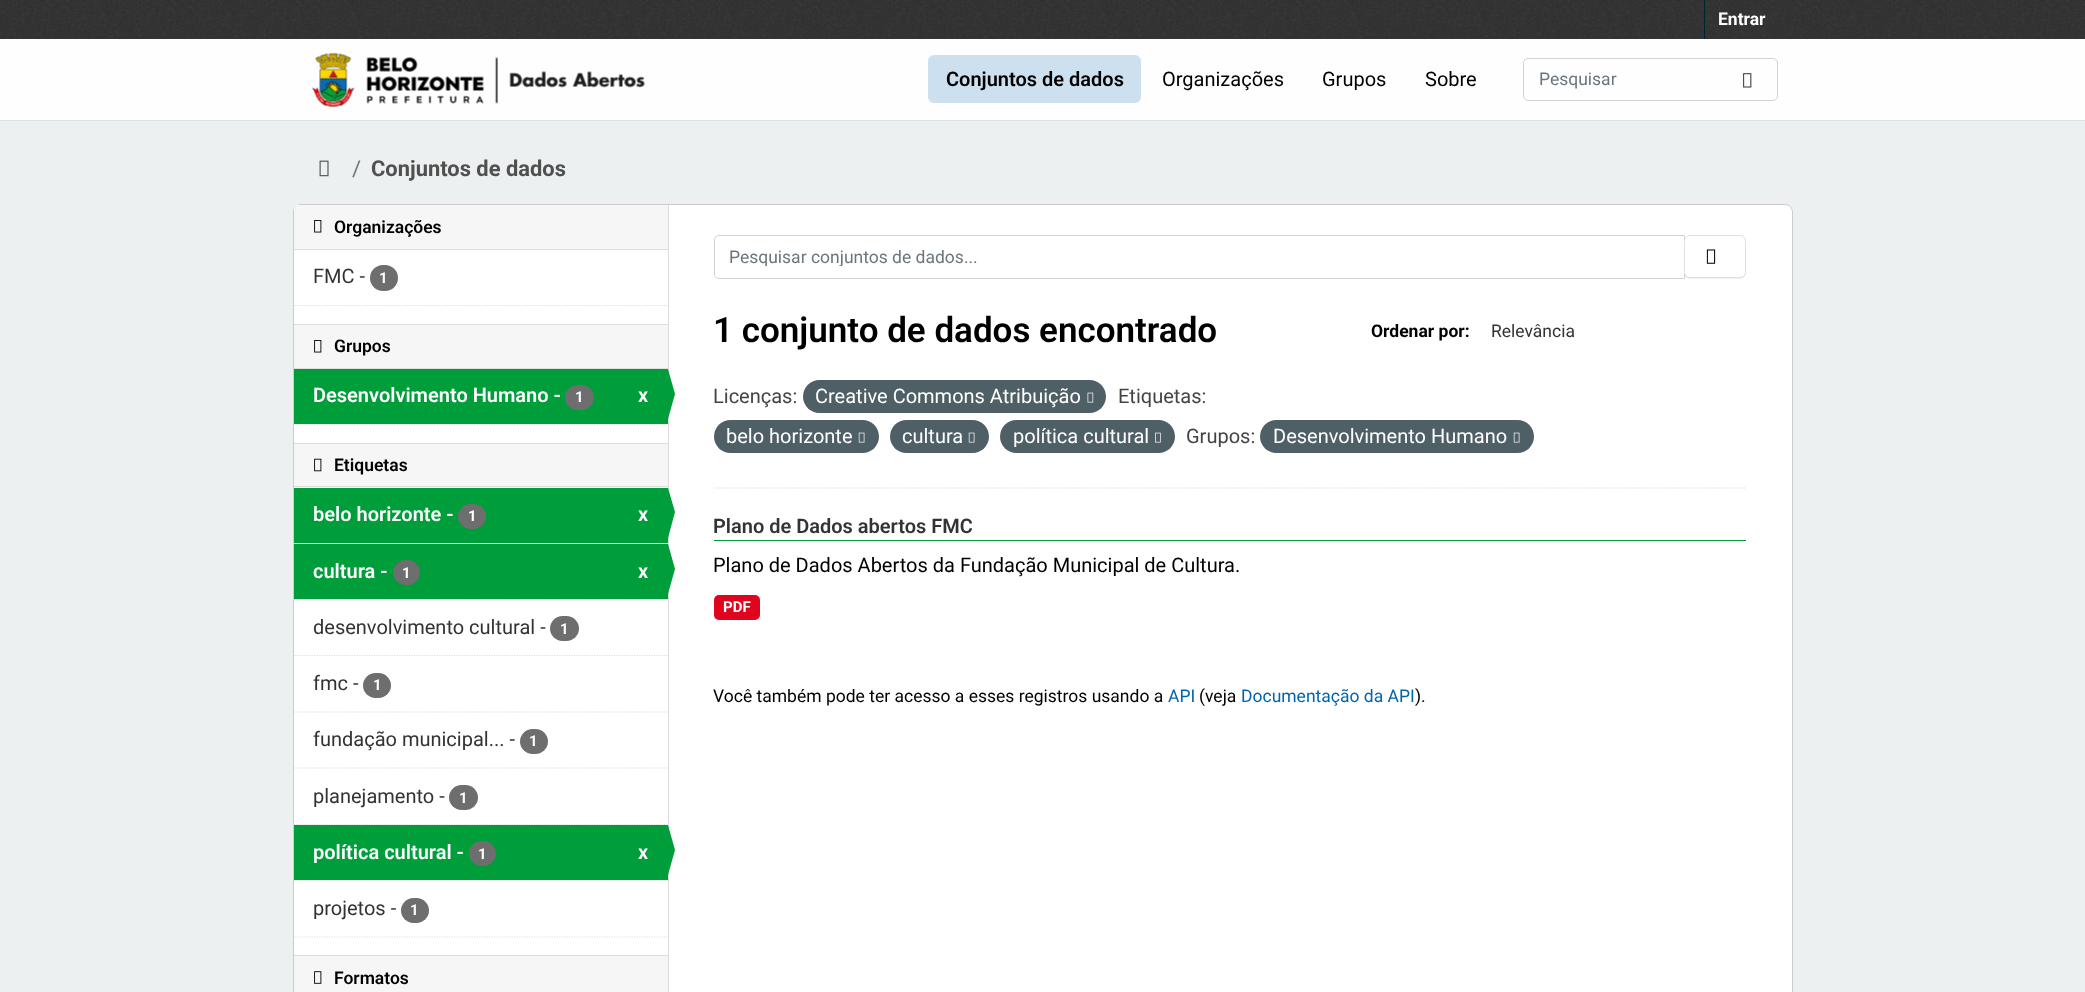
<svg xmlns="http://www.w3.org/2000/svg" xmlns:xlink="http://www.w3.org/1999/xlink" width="2085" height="992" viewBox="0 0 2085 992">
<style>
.cls-1{font:bold 17.5px Roboto;fill:#ffffff}
.cls-2{font:600 20px Roboto;fill:#000000}
.cls-3{font:20px Roboto;fill:#000000}
.cls-4{font:17.5px Roboto;fill:#6c757d}
.cls-5{font:21.9px Roboto;fill:#6c757d}
.cls-6{font:bold 21.9px Roboto;fill:#505050}
.cls-7{font:600 17.5px Roboto;fill:#000000}
.cls-8{font:20px Roboto;fill:#333333}
.cls-9{font:bold 15px Roboto;fill:#ffffff}
.cls-10{font:600 20px Roboto;fill:#ffffff}
.cls-11{font:600 35px Roboto;fill:#000000}
.cls-12{font:bold 17.5px Roboto;fill:#000000}
.cls-13{font:17.5px Roboto;fill:#333333}
.cls-14{font:20px Roboto;fill:#444444}
.cls-15{font:20px Roboto;fill:#ffffff}
.cls-16{font:600 20px Roboto;fill:#333333}
.cls-17{font:17.5px Roboto;fill:#000000}
.cls-18{font:17.5px Roboto;fill:#0065af}
</style>
<defs>
<clipPath id="clip1"><rect x="730" y="246" width="939" height="20"/></clipPath>
</defs>
<rect width="100%" height="100%" fill="#ecf0f1"/>
<rect fill="#333333" x="0" y="0" width="2085" height="39"/>
<image xlink:href="image0.png" x="0" y="0" width="2085" height="38"/>
<rect fill="#00232e" x="1704" y="0" width="1" height="39"/>
<rect fill="#fefefe" x="0" y="39" width="2085" height="81"/>
<rect fill="#dee2e6" x="0" y="120" width="2085" height="1"/>
<image xlink:href="image1.png" x="312" y="52" width="333" height="56"/>
<rect fill="#cce0ef" x="928" y="55" width="213" height="48" rx="6"/>
<rect fill="none" stroke="#ced4da" x="1523.5" y="58.5" width="254" height="42" rx="4.5"/>
<image xlink:href="image2.png" x="1743" y="73" width="9" height="15"/>
<image xlink:href="image3.png" x="319" y="160" width="10" height="17"/>
<rect fill="#ffffff" stroke="#cccccc" x="293.5" y="204.5" width="1499" height="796" rx="7.5"/>
<path fill="#f6f6f6" d="M298 205H668V250H294V209C294 207 296 205 298 205Z"/>
<rect fill="#dddddd" x="294" y="249" width="374" height="1"/>
<image xlink:href="image4.png" x="314" y="220" width="8" height="13"/>
<rect fill="#6e6e6e" x="370" y="265" width="28" height="26" rx="13"/>
<path fill="none" stroke="#dddddd" stroke-width="1.2" stroke-dasharray="1.25 1.25" d="M294 305.5H667.5"/>
<rect fill="#f6f6f6" x="294" y="325" width="374" height="43"/>
<rect fill="#dddddd" x="294" y="324" width="374" height="1"/>
<rect fill="#dddddd" x="294" y="368" width="374" height="1"/>
<image xlink:href="image4.png" x="314" y="340" width="8" height="13"/>
<path fill="none" stroke="#dddddd" stroke-width="1.2" stroke-dasharray="1.25 1.25" d="M294 424.5H667.5"/>
<rect fill="#009e3b" x="294" y="369" width="374" height="55"/>
<rect fill="#6e6e6e" x="565" y="385" width="29" height="25" rx="12.5"/>
<rect fill="#dddddd" x="668" y="205" width="1" height="787"/>
<path fill="#009e3b" d="M668 419V369L675 394Z"/>
<rect fill="#f6f6f6" x="294" y="444" width="374" height="44"/>
<rect fill="#dddddd" x="294" y="443" width="374" height="1"/>
<rect fill="#dddddd" x="294" y="486" width="374" height="1"/>
<image xlink:href="image5.png" x="314" y="458" width="8" height="14"/>
<rect fill="#f6f6f6" x="294" y="543" width="374" height="1"/>
<path fill="none" stroke="#dddddd" stroke-width="1.2" stroke-dasharray="1.25 1.25" d="M294 543H667.5"/>
<rect fill="#009e3b" x="294" y="488" width="374" height="55"/>
<rect fill="#6e6e6e" x="458" y="504" width="28" height="25" rx="12.5"/>
<path fill="#009e3b" d="M668 538V488L675 512Z"/>
<rect fill="#f6f6f6" x="295" y="599" width="373" height="1"/>
<path fill="none" stroke="#dddddd" stroke-width="1.2" stroke-dasharray="1.25 1.25" d="M294 599.5H667.5"/>
<rect fill="#009e3b" x="294" y="544" width="374" height="55"/>
<rect fill="#6e6e6e" x="393" y="560" width="27" height="25" rx="12.5"/>
<path fill="#009e3b" d="M668 594V544L675 569Z"/>
<path fill="none" stroke="#dddddd" stroke-width="1.2" stroke-dasharray="1.25 1.25" d="M294 655.5H667.5"/>
<rect fill="#6e6e6e" x="550" y="616" width="29" height="25" rx="12.5"/>
<path fill="none" stroke="#dddddd" stroke-width="1.2" stroke-dasharray="1.25 1.25" d="M294 712H667.5"/>
<rect fill="#6e6e6e" x="363" y="673" width="28" height="25" rx="12.5"/>
<path fill="none" stroke="#dddddd" stroke-width="1.2" stroke-dasharray="1.25 1.25" d="M294 768H667.5"/>
<rect fill="#6e6e6e" x="520" y="729" width="28" height="25" rx="12.5"/>
<path fill="none" stroke="#dddddd" stroke-width="1.2" stroke-dasharray="1.25 1.25" d="M294 824.5H667.5"/>
<rect fill="#6e6e6e" x="449" y="785" width="29" height="25" rx="12.5"/>
<rect fill="#f6f6f6" x="295" y="880" width="373" height="1"/>
<path fill="none" stroke="#dddddd" stroke-width="1.2" stroke-dasharray="1.25 1.25" d="M294 880.5H667.5"/>
<rect fill="#009e3b" x="294" y="825" width="374" height="55"/>
<rect fill="#6e6e6e" x="469" y="841" width="27" height="25" rx="12.5"/>
<path fill="#009e3b" d="M668 875V825L675 850Z"/>
<rect fill="#6e6e6e" x="401" y="898" width="28" height="25" rx="12.5"/>
<path fill="none" stroke="#dddddd" stroke-width="1.2" stroke-dasharray="1.25 1.25" d="M294 937H667.5"/>
<rect fill="#f6f6f6" x="294" y="956" width="374" height="36"/>
<rect fill="#dddddd" x="294" y="955" width="374" height="1"/>
<image xlink:href="image6.png" x="314" y="971" width="8" height="13"/>
<path fill="none" stroke="#dddddd" stroke-width="1.2" stroke-dasharray="1.25 1.25" d="M714 488H1746"/>
<path fill="none" stroke="#ced4da" d="M719 235.5H1684.5V278.5H719C716.5 278.5 714.5 276.5 714.5 274V240C714.5 237.5 716.5 235.5 719 235.5Z"/>
<rect fill="#000000" fill-opacity="0.07" filter="blur(0.5px)" x="1684" y="236" width="62" height="43" rx="6"/>
<rect fill="#ffffff" stroke="#dee2e6" x="1684.5" y="235.5" width="61" height="42" rx="5.5"/>
<image xlink:href="image7.png" x="1706" y="249" width="10" height="15"/>
<rect fill="#4e5f65" x="803" y="380" width="303" height="33" rx="16.5"/>
<image xlink:href="image8.png" x="1087" y="392" width="7" height="11"/>
<rect fill="#4e5f65" x="714" y="420" width="165" height="33" rx="16.5"/>
<image xlink:href="image9.png" x="858" y="432" width="7" height="11"/>
<rect fill="#4e5f65" x="890" y="420" width="99" height="33" rx="16.5"/>
<image xlink:href="image9.png" x="968" y="432" width="7" height="11"/>
<rect fill="#4e5f65" x="1000" y="420" width="175" height="33" rx="16.5"/>
<image xlink:href="image10.png" x="1155" y="432" width="6" height="11"/>
<rect fill="#4e5f65" x="1260" y="420" width="274" height="33" rx="16.5"/>
<image xlink:href="image9.png" x="1513" y="432" width="7" height="11"/>
<rect fill="#009e3b" x="714" y="540" width="1032" height="1"/>
<rect fill="#e0051e" x="714" y="595" width="46" height="25" rx="5"/>
<text class="cls-1" x="1718" y="25">Entrar</text>
<text class="cls-2" x="946" y="86">Conjuntos de dados</text>
<text class="cls-3" x="1162" y="86">Organizações</text>
<text class="cls-3" x="1322" y="86">Grupos</text>
<text class="cls-3" x="1425" y="86">Sobre</text>
<text class="cls-4" x="1539" y="85">Pesquisar</text>
<text class="cls-5" x="352" y="176">/</text>
<text class="cls-6" x="371" y="176">Conjuntos de dados</text>
<text class="cls-7" x="334" y="233">Organizações</text>
<text class="cls-8" x="313" y="283">FMC -</text>
<text class="cls-9" x="379" y="283">1</text>
<text class="cls-7" x="334" y="352">Grupos</text>
<text class="cls-10" x="313" y="402">Desenvolvimento Humano -</text>
<text class="cls-9" x="575" y="402">1</text>
<text class="cls-10" x="638" y="402">x</text>
<text class="cls-7" x="334" y="471">Etiquetas</text>
<text class="cls-10" x="313" y="521">belo horizonte -</text>
<text class="cls-9" x="468" y="521">1</text>
<text class="cls-10" x="638" y="521">x</text>
<text class="cls-10" x="313" y="578">cultura -</text>
<text class="cls-9" x="402" y="578">1</text>
<text class="cls-10" x="638" y="578">x</text>
<text class="cls-8" x="313" y="634">desenvolvimento cultural -</text>
<text class="cls-9" x="560" y="634">1</text>
<text class="cls-8" x="313" y="690">fmc -</text>
<text class="cls-9" x="373" y="690">1</text>
<text class="cls-8" x="313" y="746">fundação municipal... -</text>
<text class="cls-9" x="529" y="746">1</text>
<text class="cls-8" x="313" y="803">planejamento -</text>
<text class="cls-9" x="459" y="803">1</text>
<text class="cls-10" x="313" y="859">política cultural -</text>
<text class="cls-9" x="478" y="859">1</text>
<text class="cls-10" x="638" y="859">x</text>
<text class="cls-8" x="313" y="915">projetos -</text>
<text class="cls-9" x="410" y="915">1</text>
<text class="cls-7" x="334" y="984">Formatos</text>
<g clip-path="url(#clip1)">
<text class="cls-4" x="729" y="263">Pesquisar conjuntos de dados...</text>
</g>
<text class="cls-11" x="713" y="342">1 conjunto de dados encontrado</text>
<text class="cls-12" x="1371" y="337">Ordenar por:</text>
<text class="cls-13" x="1491" y="337">Relevância</text>
<text class="cls-14" x="713" y="403">Licenças:</text>
<text class="cls-15" x="815" y="403">Creative Commons Atribuição</text>
<text class="cls-14" x="1118" y="403">Etiquetas:</text>
<text class="cls-15" x="726" y="443">belo horizonte</text>
<text class="cls-15" x="902" y="443">cultura</text>
<text class="cls-15" x="1013" y="443">política cultural</text>
<text class="cls-14" x="1186" y="443">Grupos:</text>
<text class="cls-15" x="1273" y="443">Desenvolvimento Humano</text>
<text class="cls-16" x="713" y="533">Plano de Dados abertos FMC</text>
<text class="cls-3" x="713" y="572">Plano de Dados Abertos da Fundação Municipal de Cultura.</text>
<text class="cls-9" x="723" y="612">PDF</text>
<text class="cls-17" x="713" y="702">Você também pode ter acesso a esses registros usando a</text>
<text class="cls-18" x="1168" y="702">API</text>
<text class="cls-17" x="1199" y="702">(veja</text>
<text class="cls-18" x="1241" y="702">Documentação da API</text>
<text class="cls-17" x="1415" y="702">).</text>
</svg>
